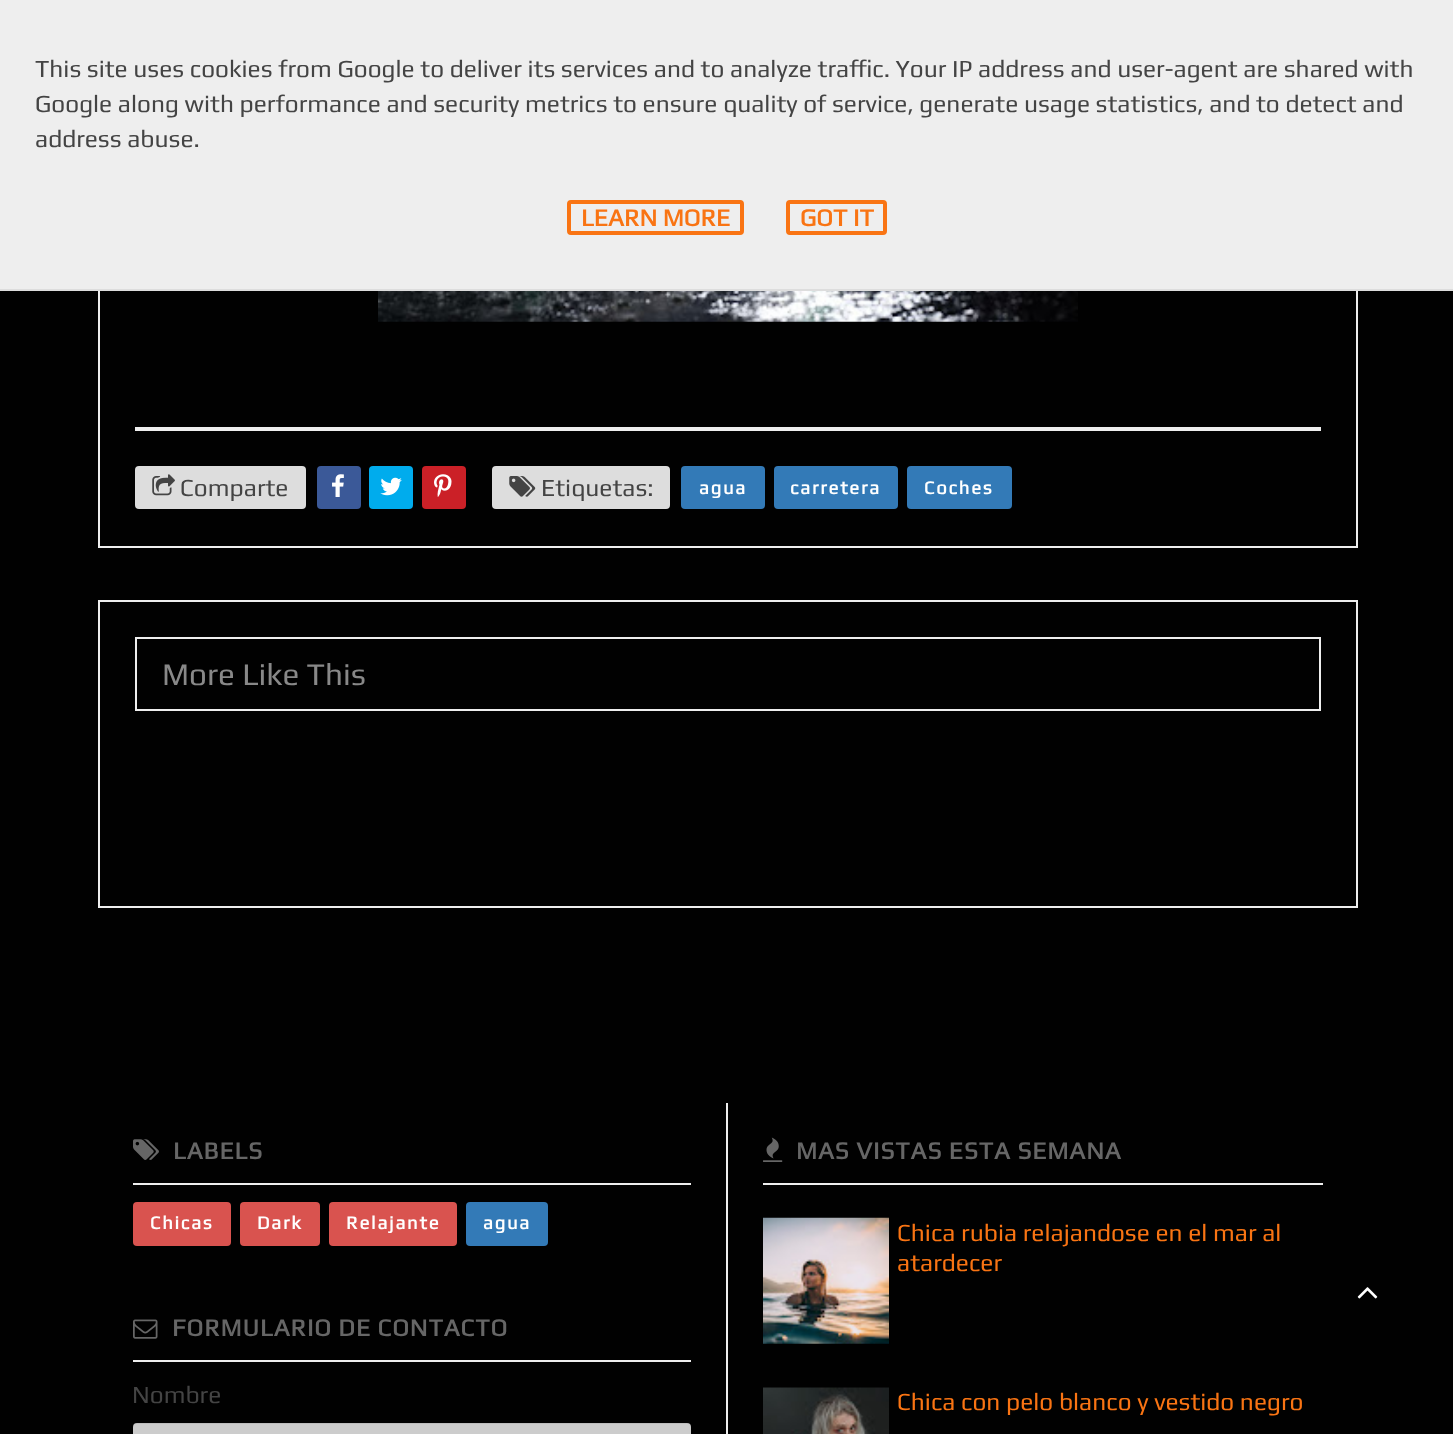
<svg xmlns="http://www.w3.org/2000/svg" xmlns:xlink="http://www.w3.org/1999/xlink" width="1453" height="1434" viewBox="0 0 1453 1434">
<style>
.cls-1{font:24.5px Play;fill:#444444}
.cls-2{font:bold 24.5px Play;fill:#f97413}
.cls-3{font:bold 18.5px Play;letter-spacing:1.75px;fill:#ffffff}
.cls-4{font:31.5px Play;fill:#888888}
.cls-5{font:bold 24.5px Play;letter-spacing:0.9px;fill:#666666}
.cls-6{font:24.5px Play;fill:#f97413}
</style>
<rect width="100%" height="100%" fill="#010101"/>
<rect fill="none" stroke="#eeeeee" stroke-width="2" x="99" y="-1" width="1258" height="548"/>
<rect fill="#eeeeee" x="0" y="0" width="1453" height="289"/>
<rect fill="#dddddd" x="0" y="289" width="1453" height="2"/>
<rect fill="none" stroke="#f97413" stroke-width="4" x="569" y="202" width="173" height="31" rx="2"/>
<rect fill="none" stroke="#f97413" stroke-width="4" x="788" y="202" width="97" height="31" rx="2"/>
<image xlink:href="image0.png" x="378" y="291" width="700" height="31"/>
<rect fill="#eeeeee" x="135" y="427" width="1186" height="4"/>
<rect fill="#dddddd" x="135" y="466" width="171" height="43" rx="4"/>
<image xlink:href="image1.png" x="152" y="474" width="23" height="22"/>
<rect fill="#3b5998" x="317" y="466" width="44" height="43" rx="4"/>
<image xlink:href="image2.png" x="332" y="474" width="12" height="23"/>
<rect fill="#00aced" x="369" y="466" width="44" height="43" rx="4"/>
<image xlink:href="image3.png" x="380" y="477" width="22" height="19"/>
<rect fill="#cb2027" x="422" y="466" width="44" height="43" rx="4"/>
<image xlink:href="image4.png" x="434" y="474" width="18" height="23"/>
<rect fill="#dddddd" x="492" y="466" width="178" height="43" rx="4"/>
<image xlink:href="image5.png" x="509" y="476" width="27" height="21"/>
<rect fill="#337ab7" x="681" y="466" width="84" height="43" rx="4"/>
<rect fill="#337ab7" x="774" y="466" width="124" height="43" rx="4"/>
<rect fill="#337ab7" x="907" y="466" width="105" height="43" rx="4"/>
<rect fill="none" stroke="#eeeeee" stroke-width="2" x="99" y="601" width="1258" height="306"/>
<rect fill="none" stroke="#eeeeee" stroke-width="2" x="136" y="638" width="1184" height="72"/>
<rect fill="#eeeeee" x="726" y="1103" width="2" height="331"/>
<rect fill="#eeeeee" x="133" y="1183" width="558" height="2"/>
<image xlink:href="image6.png" x="133" y="1139" width="26" height="21"/>
<rect fill="#d9534f" x="133" y="1202" width="98" height="44" rx="4"/>
<rect fill="#d9534f" x="240" y="1202" width="80" height="44" rx="4"/>
<rect fill="#d9534f" x="329" y="1202" width="128" height="44" rx="4"/>
<rect fill="#337ab7" x="466" y="1202" width="82" height="44" rx="4"/>
<rect fill="#eeeeee" x="133" y="1360" width="558" height="2"/>
<image xlink:href="image7.png" x="133" y="1319" width="25" height="20"/>
<rect fill="#cccccc" x="133" y="1423" width="558" height="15" rx="4"/>
<path fill="#000000" fill-opacity="0.07" d="M136 1424H688C690 1424 691 1426 691 1428V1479V1426C691 1424 690 1423 688 1423H136C135 1423 133 1424 133 1426V1428C133 1426 135 1424 136 1424Z"/>
<rect fill="#eeeeee" x="763" y="1183" width="560" height="2"/>
<image xlink:href="image8.png" x="763" y="1137" width="20" height="25"/>
<image xlink:href="image9.png" x="763" y="1217" width="126" height="127"/>
<image xlink:href="image10.png" x="763" y="1387" width="126" height="47"/>
<image xlink:href="image11.png" x="1357" y="1287" width="21" height="12"/>
<text class="cls-1"><tspan x="35" y="77">This site uses cookies from Google to deliver its services and to analyze traffic. Your IP address and user-agent are shared with</tspan><tspan x="35" y="112">Google along with performance and security metrics to ensure quality of service, generate usage statistics, and to detect and</tspan><tspan x="35" y="147">address abuse.</tspan></text>
<text class="cls-2" x="581" y="226">LEARN MORE</text>
<text class="cls-2" x="800" y="226">GOT IT</text>
<text class="cls-1" x="180" y="496">Comparte</text>
<text class="cls-1" x="541" y="496">Etiquetas:</text>
<text class="cls-3" x="699" y="494">agua</text>
<text class="cls-3" x="790" y="494">carretera</text>
<text class="cls-3" x="924" y="494">Coches</text>
<text class="cls-4" x="162" y="685">More Like This</text>
<text class="cls-5" x="173" y="1159">LABELS</text>
<text class="cls-3" x="150" y="1229">Chicas</text>
<text class="cls-3" x="257" y="1229">Dark</text>
<text class="cls-3" x="346" y="1229">Relajante</text>
<text class="cls-3" x="483" y="1229">agua</text>
<text class="cls-5" x="172" y="1336">FORMULARIO DE CONTACTO</text>
<text class="cls-1" x="132" y="1403">Nombre</text>
<text class="cls-5" x="796" y="1159">MAS VISTAS ESTA SEMANA</text>
<text class="cls-6"><tspan x="897" y="1241">Chica rubia relajandose en el mar al</tspan><tspan x="897" y="1271">atardecer</tspan></text>
<text class="cls-6" x="897" y="1410">Chica con pelo blanco y vestido negro</text>
</svg>
